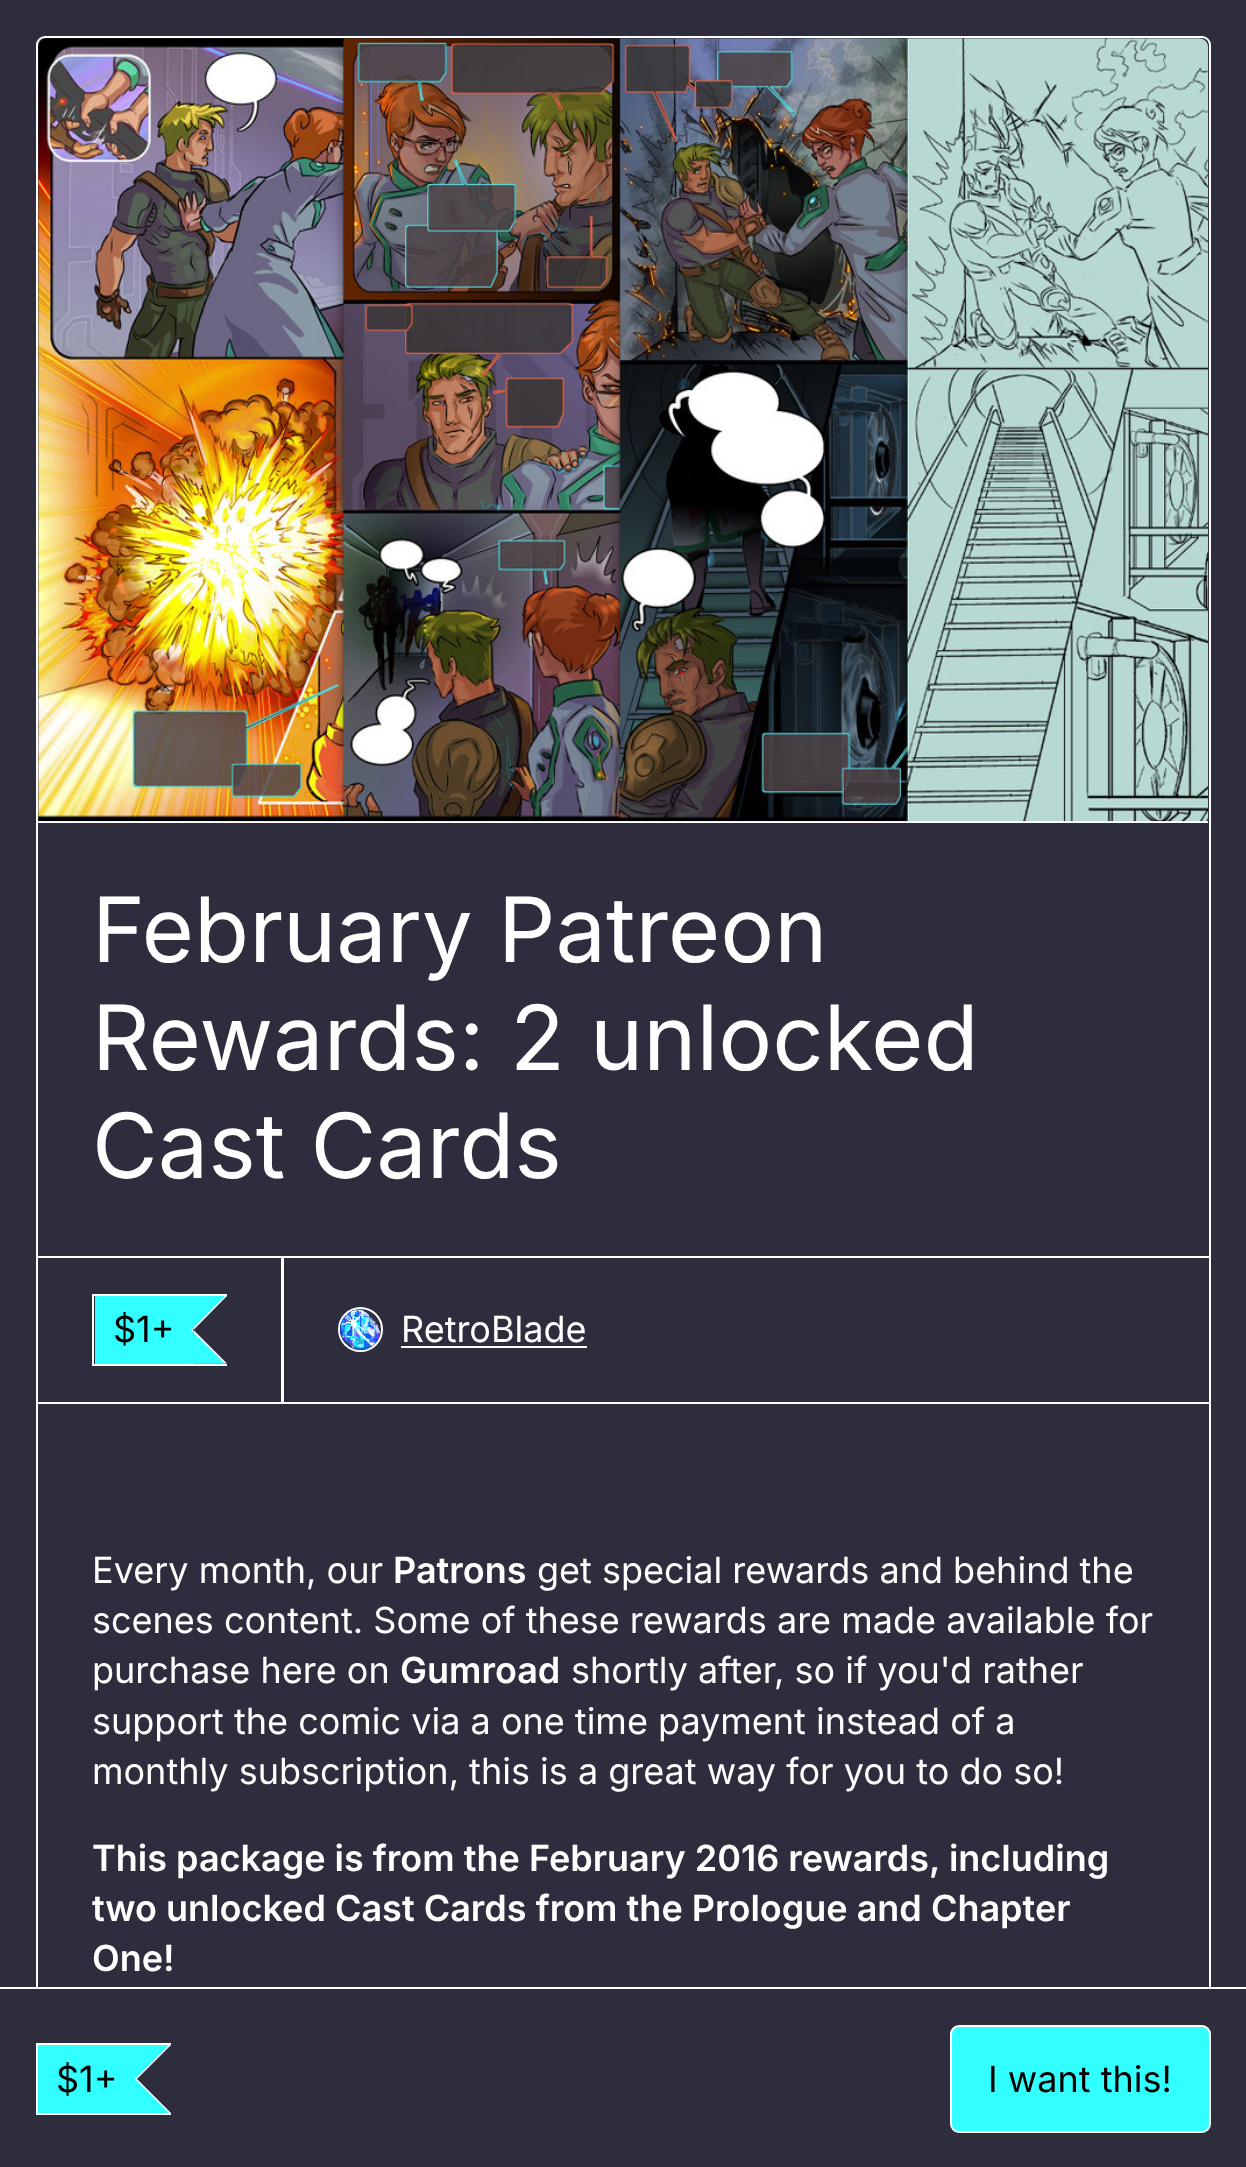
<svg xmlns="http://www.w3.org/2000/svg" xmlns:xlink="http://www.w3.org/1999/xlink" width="1246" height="2167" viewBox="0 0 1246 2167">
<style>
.cls-1{font:90px Inter;fill:#ffffff}
.cls-2{font:36px Inter;fill:#000000}
.cls-3{font:36px Inter;fill:#ffffff}
.cls-4{font:600 36px Inter;fill:#ffffff}
</style>
<rect width="100%" height="100%" fill="#2d2d3e"/>
<rect fill="none" stroke="#ffffff" stroke-width="2" x="37" y="37" width="1173" height="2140" rx="8"/>
<rect fill="#ffffff" x="38" y="821" width="1170" height="2"/>
<image xlink:href="image0.png" x="38" y="38" width="1171" height="784"/>
<rect fill="none" stroke="#ffffff" stroke-width="2" x="37" y="1257" width="246" height="146"/>
<rect fill="#ffffff" x="92" y="1294" width="135" height="2"/>
<rect fill="#ffffff" x="92" y="1364" width="135" height="2"/>
<rect fill="#ffffff" x="92" y="1294" width="2" height="72"/>
<rect fill="#32ffff" x="95" y="1296" width="96" height="68"/>
<path fill="#ffffff" d="M191 1296H227L193.5 1330Z"/>
<path fill="#ffffff" d="M227 1363.5H191L193.5 1330Z"/>
<rect fill="#ffffff" x="191" y="1328" width="2" height="36"/>
<path fill="#32ffff" d="M189 1296H225L191 1330Z"/>
<path fill="#32ffff" d="M225 1363.5H189L191 1330Z"/>
<rect fill="none" stroke="#ffffff" stroke-width="2" x="282" y="1257" width="928" height="146"/>
<circle fill="none" stroke="#ffffff" stroke-width="2" cx="360.5" cy="1329.5" r="21.5"/>
<image xlink:href="image1.png" x="339" y="1309" width="41" height="41"/>
<rect fill="#ffffff" x="401" y="1346" width="186" height="2"/>
<path fill="#ffffff" d="M0 1987V1989H1246V2167H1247V1987Z"/>
<rect fill="#2d2d3e" x="36" y="1989" width="1175" height="178"/>
<rect fill="#ffffff" x="36" y="2043" width="135" height="2"/>
<rect fill="#ffffff" x="36" y="2113" width="135" height="2"/>
<rect fill="#ffffff" x="36" y="2043" width="2" height="72"/>
<rect fill="#32ffff" x="38" y="2045" width="97" height="68"/>
<path fill="#ffffff" d="M135 2045H171L137 2079Z"/>
<path fill="#ffffff" d="M171 2113H135L137 2079Z"/>
<rect fill="#ffffff" x="135" y="2077" width="2" height="4"/>
<path fill="#32ffff" d="M133 2045H169L135 2079Z"/>
<path fill="#32ffff" d="M169 2113H133L135 2079Z"/>
<rect fill="#32ffff" stroke="#ffffff" stroke-width="2" x="951" y="2026" width="259" height="106" rx="8"/>
<text class="cls-1"><tspan x="92" y="962">February Patreon</tspan><tspan x="92" y="1070">Rewards: 2 unlocked</tspan><tspan x="92" y="1178">Cast Cards</tspan></text>
<text class="cls-2" x="113" y="1342">$1+</text>
<text class="cls-3" x="401" y="1342">RetroBlade</text>
<text class="cls-3" x="92" y="1583">Every month, our</text>
<text class="cls-4" x="393" y="1583">Patrons</text>
<text class="cls-3" x="537" y="1583">get special rewards and behind the</text>
<text class="cls-3"><tspan x="92" y="1633">scenes content. Some of these rewards are made available for</tspan><tspan x="92" y="1683">purchase here on</tspan></text>
<text class="cls-4" x="400" y="1683">Gumroad</text>
<text class="cls-3" x="571" y="1683">shortly after, so if you'd rather</text>
<text class="cls-3"><tspan x="92" y="1734">support the comic via a one time payment instead of a</tspan><tspan x="92" y="1784">monthly subscription, this is a great way for you to do so!</tspan></text>
<text class="cls-4"><tspan x="92" y="1871">This package is from the February 2016 rewards, including</tspan><tspan x="92" y="1921">two unlocked Cast Cards from the Prologue and Chapter</tspan><tspan x="92" y="1971">One!</tspan></text>
<text class="cls-2" x="56" y="2092">$1+</text>
<text class="cls-2" x="988" y="2092">I want this!</text>
</svg>
